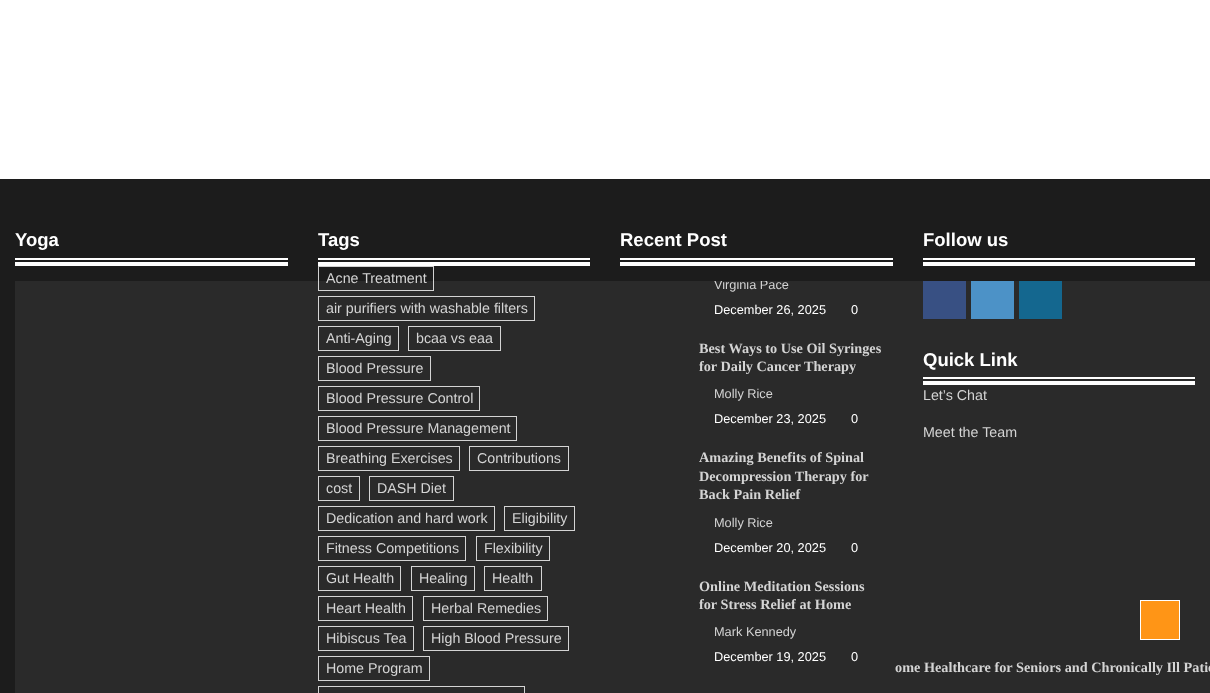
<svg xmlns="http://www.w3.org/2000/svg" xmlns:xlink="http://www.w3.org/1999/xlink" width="1210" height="693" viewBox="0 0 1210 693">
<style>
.cls-1{font:bold 18.5px Liberation Sans;fill:#ffffff}
.cls-2{font:14.25px Liberation Sans;fill:#d4d4d4}
.cls-3{font:bold 14.25px Liberation Serif;fill:#d4d4d4}
.cls-4{font:12.75px Liberation Sans;fill:#d4d4d4}
.cls-5{font:12.75px Liberation Sans;fill:#ffffff}
</style>
<defs>
<clipPath id="clip1"><rect x="620" y="281" width="273" height="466"/></clipPath>
</defs>
<rect width="100%" height="100%" fill="#ffffff"/>
<rect fill="#1c1c1c" x="0" y="179" width="1210" height="514"/>
<rect fill="#ffffff" x="923" y="262" width="272" height="4"/>
<rect fill="#ffffff" x="923" y="258" width="272" height="2"/>
<rect fill="#2a2a2a" x="15" y="281" width="1195" height="412"/>
<rect fill="#385083" x="923" y="281" width="43" height="38"/>
<rect fill="#4c92c7" x="971" y="281" width="43" height="38"/>
<rect fill="#14678f" x="1019" y="281" width="43" height="38"/>
<rect fill="#ffffff" x="923" y="381" width="272" height="4"/>
<rect fill="#ffffff" x="923" y="377" width="272" height="2"/>
<rect fill="#ffffff" x="15" y="262" width="273" height="4"/>
<rect fill="#ffffff" x="15" y="258" width="273" height="2"/>
<rect fill="#ffffff" x="318" y="262" width="272" height="4"/>
<rect fill="#ffffff" x="318" y="258" width="272" height="2"/>
<rect fill="none" stroke="#ffffff" stroke-opacity="0.8" x="318.5" y="266.5" width="115" height="24"/>
<rect fill="none" stroke="#d4d4d4" x="318.5" y="296.5" width="216" height="24"/>
<rect fill="none" stroke="#d4d4d4" x="318.5" y="326.5" width="80" height="24"/>
<rect fill="none" stroke="#d4d4d4" x="408.5" y="326.5" width="92" height="24"/>
<rect fill="none" stroke="#d4d4d4" x="318.5" y="356.5" width="112" height="24"/>
<rect fill="none" stroke="#d4d4d4" x="318.5" y="386.5" width="161" height="24"/>
<rect fill="none" stroke="#d4d4d4" x="318.5" y="416.5" width="198" height="24"/>
<rect fill="none" stroke="#d4d4d4" x="318.5" y="446.5" width="141" height="24"/>
<rect fill="none" stroke="#d4d4d4" x="469.5" y="446.5" width="99" height="24"/>
<rect fill="none" stroke="#d4d4d4" x="318.5" y="476.5" width="41" height="24"/>
<rect fill="none" stroke="#d4d4d4" x="369.5" y="476.5" width="84" height="24"/>
<rect fill="none" stroke="#d4d4d4" x="318.5" y="506.5" width="176" height="24"/>
<rect fill="none" stroke="#d4d4d4" x="504.5" y="506.5" width="70" height="24"/>
<rect fill="none" stroke="#d4d4d4" x="318.5" y="536.5" width="147" height="24"/>
<rect fill="none" stroke="#d4d4d4" x="476.5" y="536.5" width="73" height="24"/>
<rect fill="none" stroke="#d4d4d4" x="318.5" y="566.5" width="82" height="24"/>
<rect fill="none" stroke="#d4d4d4" x="411.5" y="566.5" width="63" height="24"/>
<rect fill="none" stroke="#d4d4d4" x="484.5" y="566.5" width="57" height="24"/>
<rect fill="none" stroke="#d4d4d4" x="318.5" y="596.5" width="94" height="24"/>
<rect fill="none" stroke="#d4d4d4" x="423.5" y="596.5" width="124" height="24"/>
<rect fill="none" stroke="#d4d4d4" x="318.5" y="626.5" width="95" height="24"/>
<rect fill="none" stroke="#d4d4d4" x="423.5" y="626.5" width="145" height="24"/>
<rect fill="none" stroke="#d4d4d4" x="318.5" y="656.5" width="111" height="24"/>
<rect fill="none" stroke="#d4d4d4" x="318.5" y="686.5" width="206" height="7"/>
<rect fill="#ffffff" x="620" y="262" width="273" height="4"/>
<rect fill="#ffffff" x="620" y="258" width="273" height="2"/>
<rect fill="#ff9516" stroke="#ffffff" x="1140.5" y="600.5" width="39" height="39"/>
<text class="cls-1" x="923" y="246">Follow us</text>
<text class="cls-1" x="923" y="366">Quick Link</text>
<text class="cls-2" x="923" y="400">Let’s Chat</text>
<text class="cls-2" x="923" y="437">Meet the Team</text>
<text class="cls-1" x="15" y="246">Yoga</text>
<text class="cls-3" x="895" y="672">ome Healthcare for Seniors and Chronically Ill Patie</text>
<text class="cls-1" x="318" y="246">Tags</text>
<text class="cls-2" x="326" y="283">Acne Treatment</text>
<text class="cls-2" x="326" y="313">air purifiers with washable filters</text>
<text class="cls-2" x="326" y="343">Anti-Aging</text>
<text class="cls-2" x="416" y="343">bcaa vs eaa</text>
<text class="cls-2" x="326" y="373">Blood Pressure</text>
<text class="cls-2" x="326" y="403">Blood Pressure Control</text>
<text class="cls-2" x="326" y="433">Blood Pressure Management</text>
<text class="cls-2" x="326" y="463">Breathing Exercises</text>
<text class="cls-2" x="477" y="463">Contributions</text>
<text class="cls-2" x="326" y="493">cost</text>
<text class="cls-2" x="377" y="493">DASH Diet</text>
<text class="cls-2" x="326" y="523">Dedication and hard work</text>
<text class="cls-2" x="512" y="523">Eligibility</text>
<text class="cls-2" x="326" y="553">Fitness Competitions</text>
<text class="cls-2" x="484" y="553">Flexibility</text>
<text class="cls-2" x="326" y="583">Gut Health</text>
<text class="cls-2" x="419" y="583">Healing</text>
<text class="cls-2" x="492" y="583">Health</text>
<text class="cls-2" x="326" y="613">Heart Health</text>
<text class="cls-2" x="431" y="613">Herbal Remedies</text>
<text class="cls-2" x="326" y="643">Hibiscus Tea</text>
<text class="cls-2" x="431" y="643">High Blood Pressure</text>
<text class="cls-2" x="326" y="673">Home Program</text>
<text class="cls-1" x="620" y="246">Recent Post</text>
<g clip-path="url(#clip1)">
<text class="cls-4" x="714" y="289">Virginia Pace</text>
</g>
<text class="cls-5" x="714" y="314">December 26, 2025</text>
<text class="cls-5" x="851" y="314">0</text>
<text class="cls-3"><tspan x="699" y="353">Best Ways to Use Oil Syringes</tspan><tspan x="699" y="371">for Daily Cancer Therapy</tspan></text>
<text class="cls-4" x="714" y="398">Molly Rice</text>
<text class="cls-5" x="714" y="423">December 23, 2025</text>
<text class="cls-5" x="851" y="423">0</text>
<text class="cls-3"><tspan x="699" y="462">Amazing Benefits of Spinal</tspan><tspan x="699" y="481">Decompression Therapy for</tspan><tspan x="699" y="499">Back Pain Relief</tspan></text>
<text class="cls-4" x="714" y="527">Molly Rice</text>
<text class="cls-5" x="714" y="552">December 20, 2025</text>
<text class="cls-5" x="851" y="552">0</text>
<text class="cls-3"><tspan x="699" y="591">Online Meditation Sessions</tspan><tspan x="699" y="609">for Stress Relief at Home</tspan></text>
<text class="cls-4" x="714" y="636">Mark Kennedy</text>
<text class="cls-5" x="714" y="661">December 19, 2025</text>
<text class="cls-5" x="851" y="661">0</text>
</svg>
